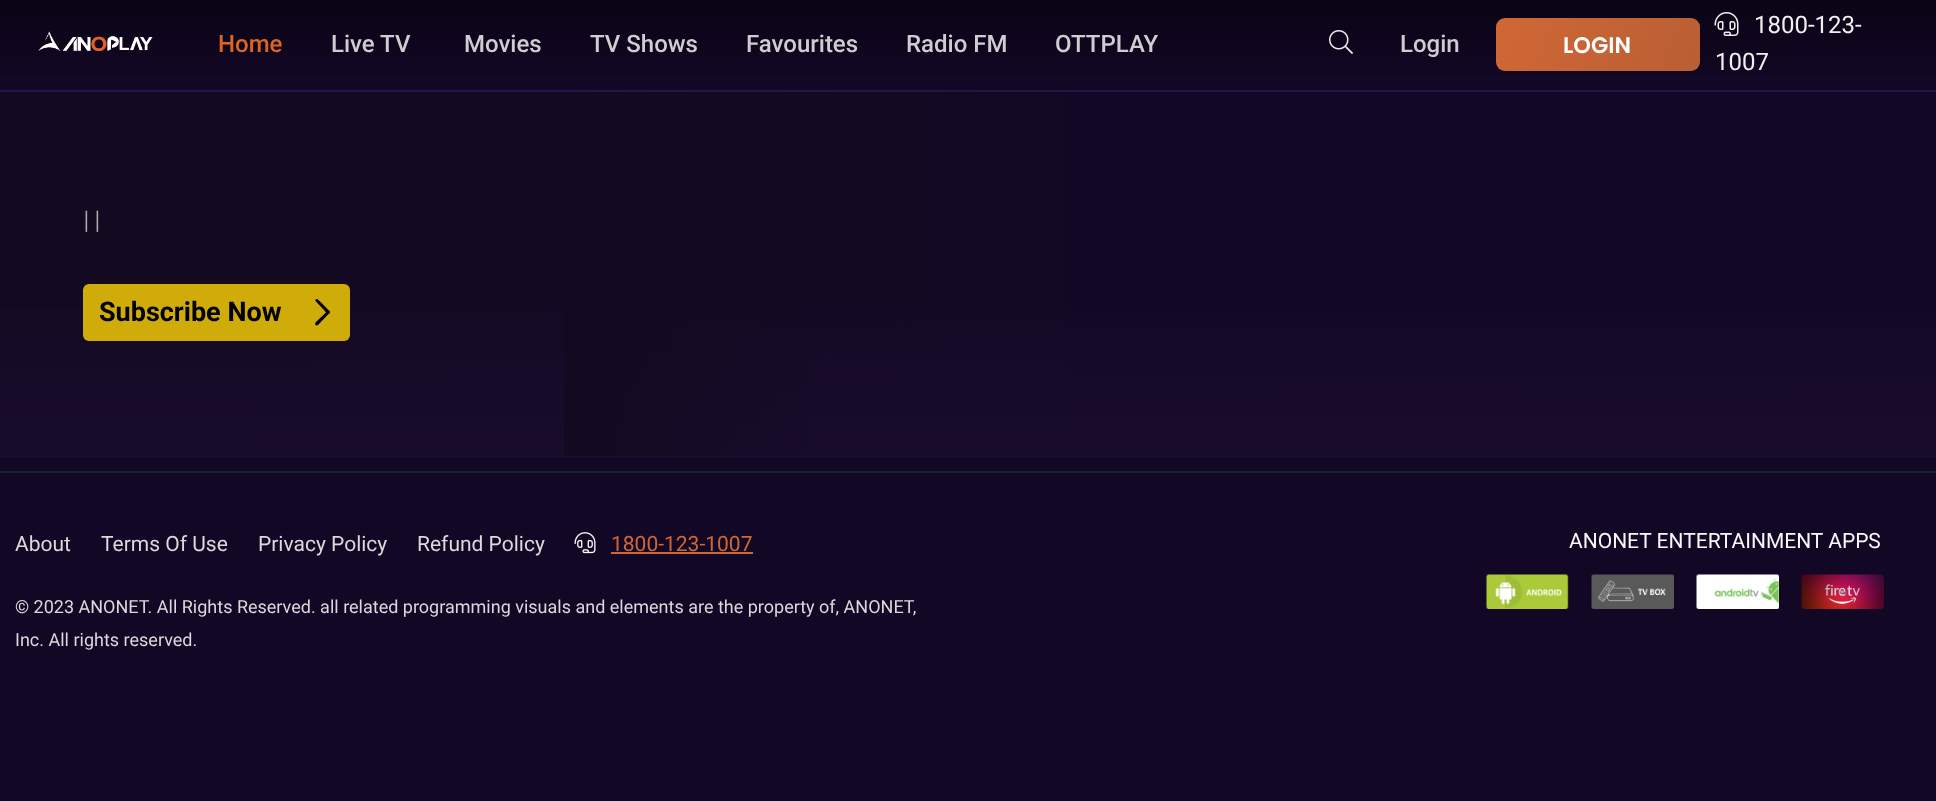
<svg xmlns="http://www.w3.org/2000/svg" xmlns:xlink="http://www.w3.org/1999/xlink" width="1936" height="801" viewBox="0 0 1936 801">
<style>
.cls-1{font:500 24px Roboto;fill:#dd6521}
.cls-2{font:500 24px Roboto;fill:#cfcdd2}
.cls-3{font:600 22.5px Poppins;fill:#ffffff}
.cls-4{font:24px Roboto;fill:#f0f0f0}
.cls-5{font:22.5px Lato;fill:#ababab}
.cls-6{font:bold 27px Roboto;fill:#040207}
.cls-7{font:21px Roboto;fill:#dadada}
.cls-8{font:21px Roboto;fill:#d06735}
.cls-9{font:18px Roboto;fill:#dadada}
.cls-10{font:21px Roboto;fill:#f8f9fa}
</style>
<defs>
<linearGradient id="g1" gradientUnits="userSpaceOnUse" x1="968" y1="0" x2="968" y2="90"><stop offset="0" stop-color="#0a0415"/><stop offset="1" stop-color="#130726"/></linearGradient>
<linearGradient id="g2" gradientUnits="userSpaceOnUse" x1="1696" y1="80" x2="1499" y2="8"><stop offset="0" stop-color="#b95f34"/><stop offset="0.99" stop-color="#d06735"/></linearGradient>
<linearGradient id="g3" gradientUnits="userSpaceOnUse" x1="0" y1="274" x2="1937" y2="274"><stop offset="0.1" stop-color="#130a21"/><stop offset="1" stop-color="#130726"/></linearGradient>
<linearGradient id="g4" gradientUnits="userSpaceOnUse" x1="968" y1="458" x2="968" y2="90"><stop offset="0" stop-color="#190c2d"/><stop offset="0.5" stop-color="#190c2d" stop-opacity="0"/></linearGradient>
<linearGradient id="g5" gradientUnits="userSpaceOnUse" x1="564" y1="273" x2="864" y2="273"><stop offset="0" stop-color="#130a21"/><stop offset="1" stop-color="#130a21" stop-opacity="0"/></linearGradient>
</defs>
<rect width="100%" height="100%" fill="#130726"/>
<rect fill="url(#g1)" x="0" y="0" width="1936" height="77"/>
<rect fill="#261448" x="0" y="90" width="1936" height="2"/>
<image xlink:href="image0.png" x="38" y="31" width="115" height="20"/>
<image xlink:href="image1.png" x="1329" y="30" width="24" height="24"/>
<rect fill="url(#g2)" x="1496" y="18" width="204" height="53" rx="9"/>
<image xlink:href="image2.png" x="1714" y="12" width="25" height="24"/>
<rect fill="url(#g3)" x="0" y="92" width="1065" height="365"/>
<rect fill="url(#g4)" x="0" y="309" width="1936" height="149"/>
<rect fill="#ffd504" fill-opacity="0.8" x="83" y="284" width="267" height="57" rx="6"/>
<path fill="#040207" d="M318 299.5C319.5 301 330 311 330 312L329.5 313.5C327.5 314.5 324.5 310.5 323.5 309.5L315.5 301C315 299.5 316.5 298.5 318 299.5Z"/>
<path fill="#040207" d="M329.5 311C330 311.5 330 312.5 329.5 313L318 325C317 325.5 316.5 325.5 315.5 325C315 324.5 315 323.5 315.5 322.5L327.5 311C328 310.5 329 310.5 329.5 311Z"/>
<rect fill="url(#g5)" x="564" y="288" width="243" height="168"/>
<rect fill="#192133" x="0" y="471" width="1936" height="2"/>
<image xlink:href="image3.png" x="574" y="532" width="22" height="22"/>
<rect fill="#d06735" x="611" y="552" width="142" height="2"/>
<image xlink:href="image4.png" x="1486" y="574" width="83" height="35"/>
<image xlink:href="image5.png" x="1591" y="574" width="83" height="35"/>
<image xlink:href="image6.png" x="1696" y="574" width="83" height="35"/>
<image xlink:href="image7.png" x="1801" y="574" width="83" height="35"/>
<text class="cls-1" x="218" y="52">Home</text>
<text class="cls-2" x="331" y="52">Live TV</text>
<text class="cls-2" x="464" y="52">Movies</text>
<text class="cls-2" x="590" y="52">TV Shows</text>
<text class="cls-2" x="746" y="52">Favourites</text>
<text class="cls-2" x="906" y="52">Radio FM</text>
<text class="cls-2" x="1055" y="52">OTTPLAY</text>
<text class="cls-2" x="1400" y="52">Login</text>
<text class="cls-3" x="1563" y="53">LOGIN</text>
<text class="cls-4" x="1754" y="33">1800-123-</text>
<text class="cls-4" x="1715" y="70">1007</text>
<text class="cls-5" x="83" y="228">| |</text>
<text class="cls-6" x="99" y="321">Subscribe Now</text>
<text class="cls-7" x="15" y="551">About</text>
<text class="cls-7" x="101" y="551">Terms Of Use</text>
<text class="cls-7" x="258" y="551">Privacy Policy</text>
<text class="cls-7" x="417" y="551">Refund Policy</text>
<text class="cls-8" x="611" y="551">1800-123-1007</text>
<text class="cls-9"><tspan x="15" y="613">© 2023 ANONET. All Rights Reserved. all related programming visuals and elements are the property of, ANONET,</tspan><tspan x="15" y="646">Inc. All rights reserved.</tspan></text>
<text class="cls-10" x="1569" y="548">ANONET ENTERTAINMENT APPS</text>
</svg>
